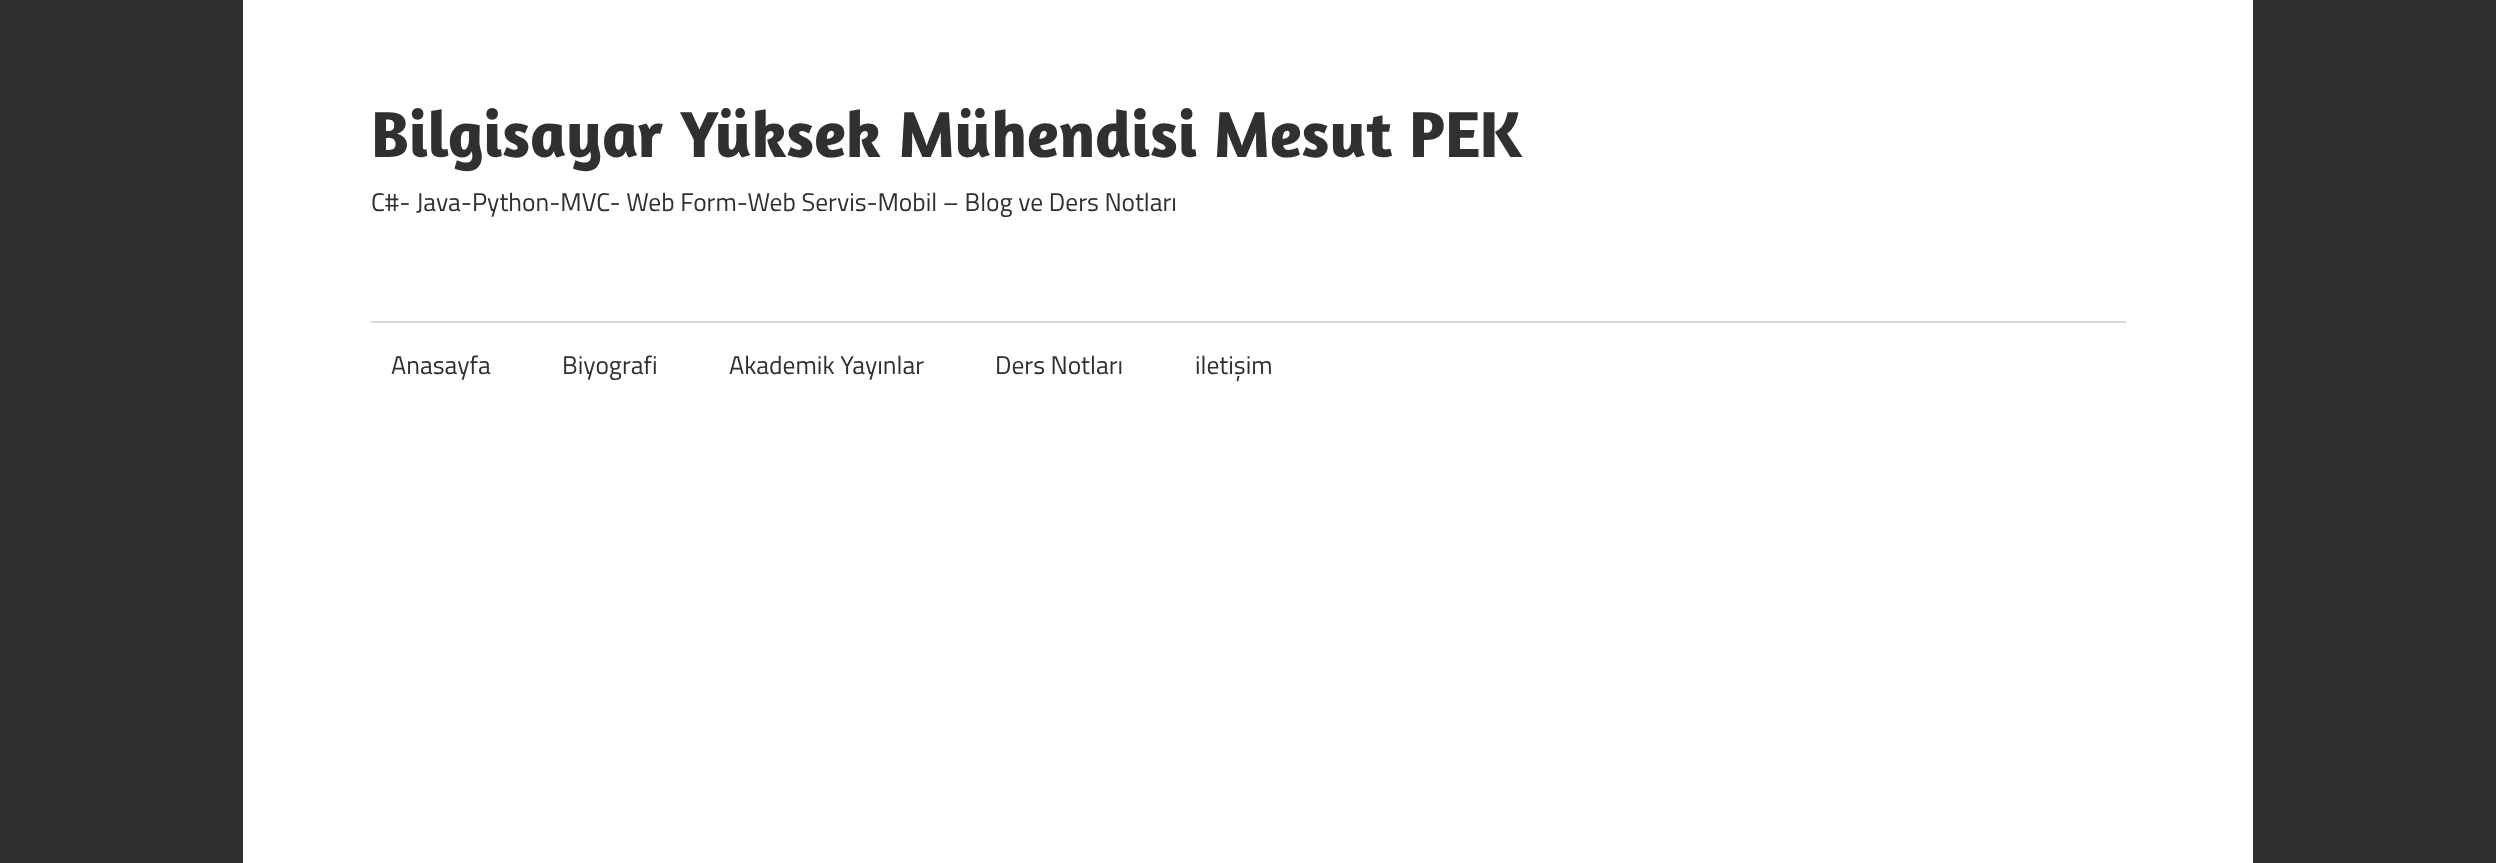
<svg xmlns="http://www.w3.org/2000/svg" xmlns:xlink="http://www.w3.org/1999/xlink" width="2496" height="863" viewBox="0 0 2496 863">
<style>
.cls-1{font:bold 66px Amaranth;fill:#303030}
.cls-2{font:25.5px Titillium Web;fill:#303030}
</style>
<rect width="100%" height="100%" fill="#303030"/>
<rect fill="#ffffff" x="243" y="0" width="2010" height="863"/>
<rect fill="#d9d9d9" x="371" y="321" width="1755" height="2"/>
<text class="cls-1" x="371" y="157">Bilgisayar Yüksek Mühendisi Mesut PEK</text>
<text class="cls-2" x="371" y="211">C#- Java-Python-MVC- Web Form-Web Servis-Mobil – Blog ve Ders Notları</text>
<text class="cls-2" x="391" y="374">Anasayfa</text>
<text class="cls-2" x="562" y="374">Biyografi</text>
<text class="cls-2" x="729" y="374">Akademik Yayınlar</text>
<text class="cls-2" x="995" y="374">Ders Notları</text>
<text class="cls-2" x="1195" y="374">iletişim</text>
</svg>
